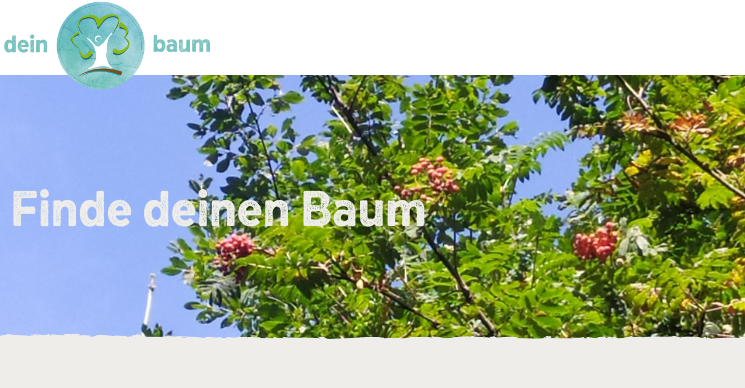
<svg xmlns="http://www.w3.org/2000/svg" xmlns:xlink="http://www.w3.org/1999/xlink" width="745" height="388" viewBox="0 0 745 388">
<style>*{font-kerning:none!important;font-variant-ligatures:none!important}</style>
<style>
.cls-1{font:bold 50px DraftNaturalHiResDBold;letter-spacing:-0.5px;fill:#eeede9}
</style>
<rect width="100%" height="100%" fill="#ffffff"/>
<image xlink:href="image1.png" x="0" y="75" width="745" height="264"/>
<image xlink:href="image0.png" x="4" y="1" width="207" height="89"/>
<image xlink:href="image2.png" x="0" y="334" width="745" height="11"/>
<rect fill="#eeede9" x="0" y="345" width="745" height="43"/>
<text class="cls-1" x="10" y="226">Finde deinen Baum</text>
</svg>
